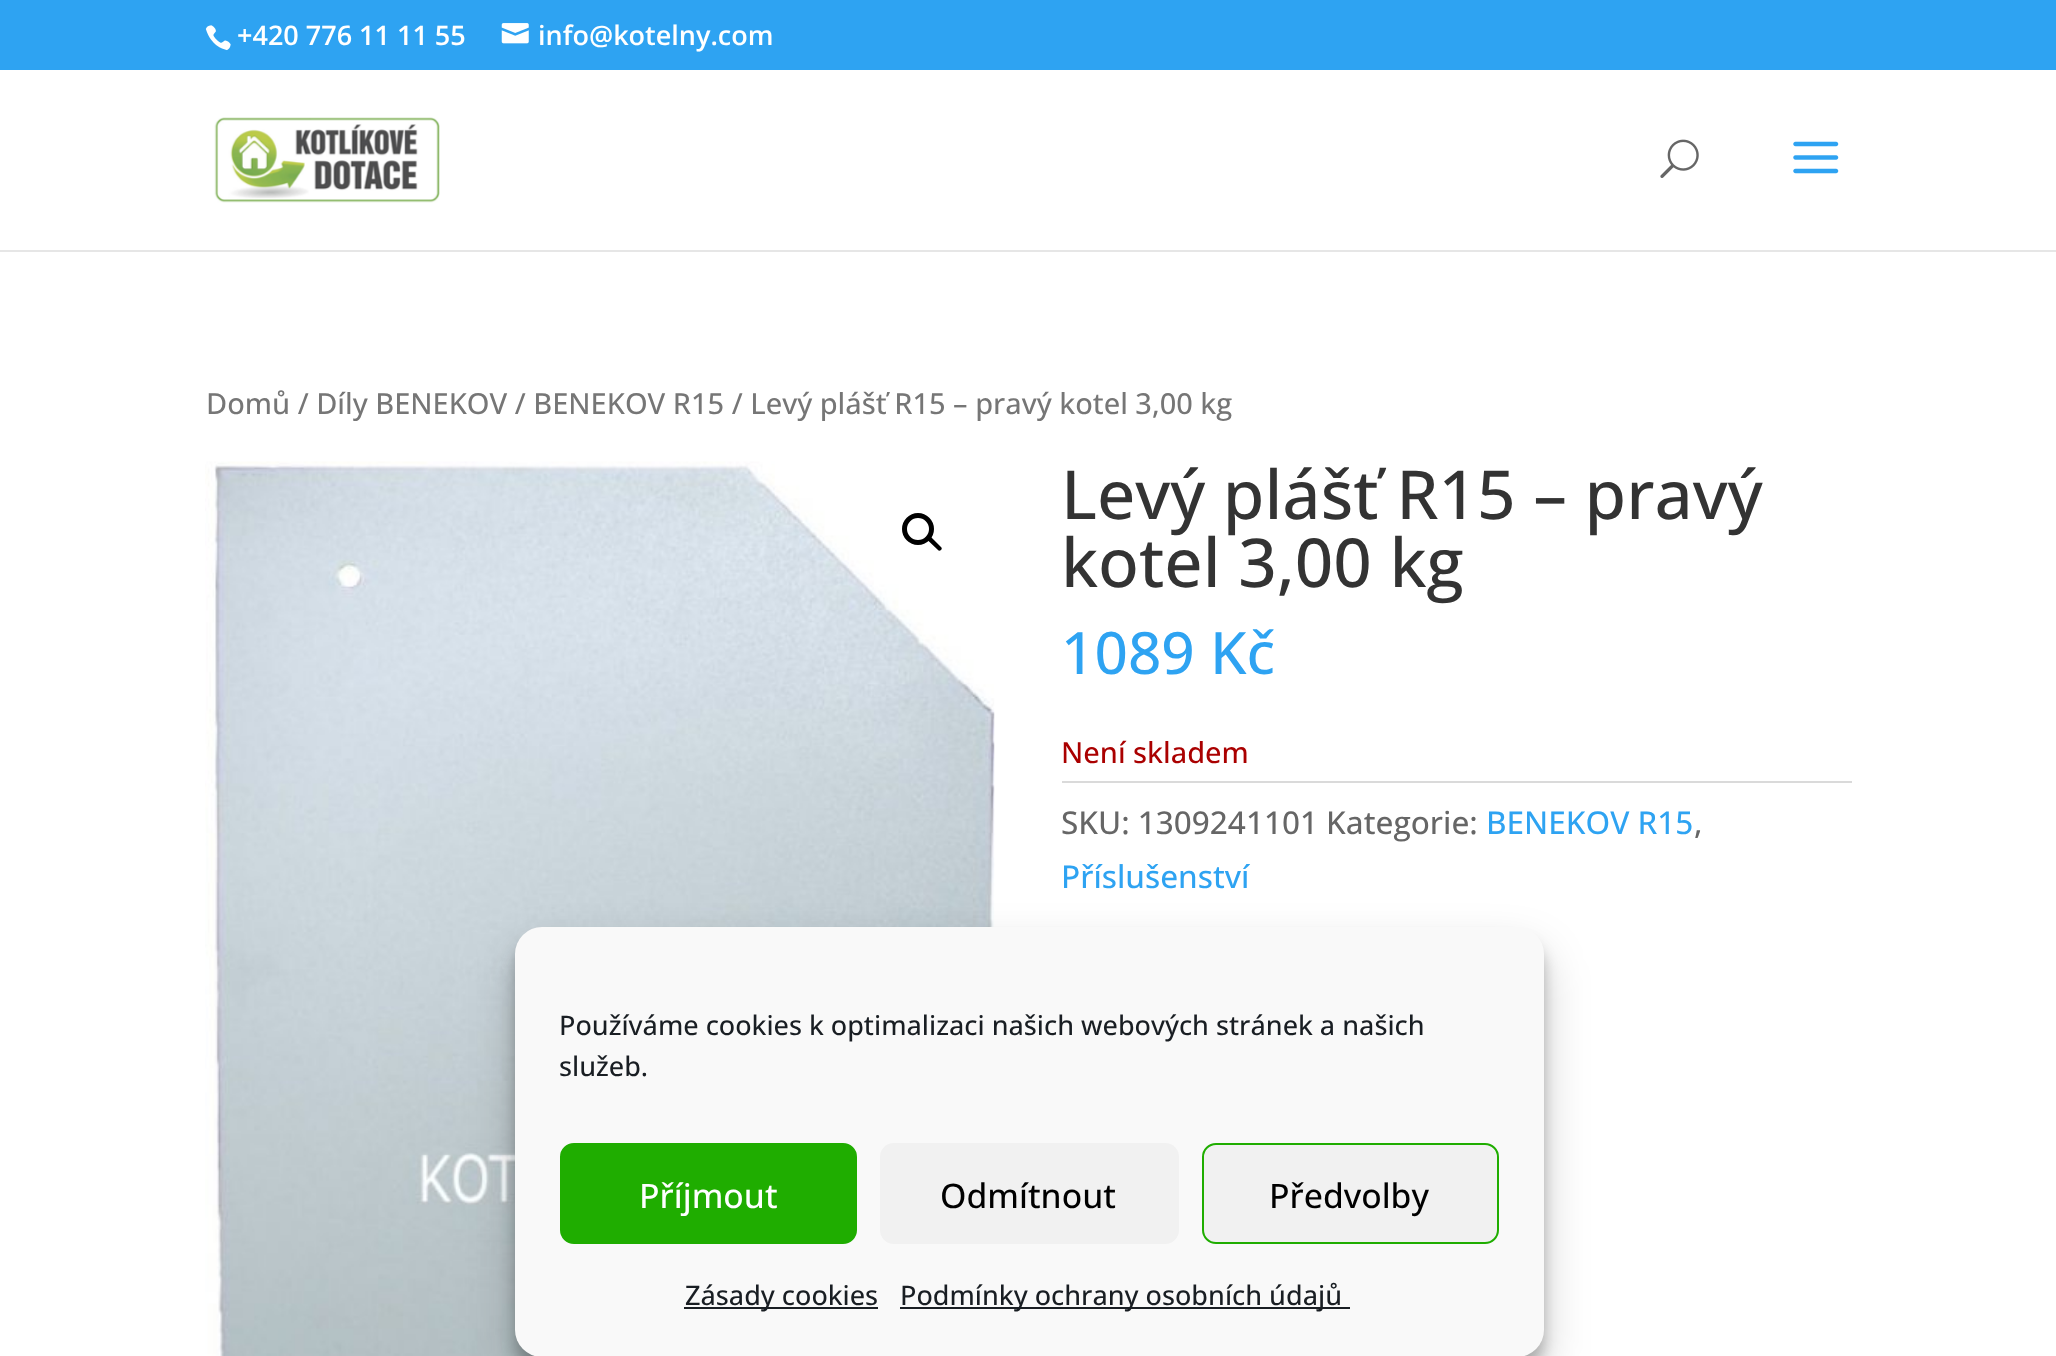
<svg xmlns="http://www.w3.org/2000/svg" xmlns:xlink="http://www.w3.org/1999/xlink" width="2056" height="1356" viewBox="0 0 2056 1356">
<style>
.cls-1{font:600 27px Open Sans;fill:#ffffff}
.cls-2{font:500 29px Open Sans;fill:#767676}
.cls-3{font:500 67.5px Open Sans;fill:#333333}
.cls-4{font:500 58.5px Open Sans;fill:#2ea3f2}
.cls-5{font:500 29px Open Sans;fill:#aa0000}
.cls-6{font:500 31.5px Open Sans;fill:#666666}
.cls-7{font:500 31.5px Open Sans;fill:#2ea3f2}
.cls-8{font:500 27px Open Sans;fill:#191e23}
.cls-9{font:500 33.75px Open Sans;fill:#ffffff}
.cls-10{font:500 33.75px Open Sans;fill:#000000}
</style>
<rect width="100%" height="100%" fill="#ffffff"/>
<rect fill="#2ea3f2" x="0" y="0" width="2056" height="70"/>
<image xlink:href="image0.png" x="205" y="25" width="26" height="26"/>
<image xlink:href="image1.png" x="501" y="23" width="28" height="21"/>
<path fill="#e6e6e6" d="M0 250V252H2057V72H2056V250Z"/>
<image xlink:href="image2.png" x="214" y="117" width="226" height="86"/>
<image xlink:href="image3.png" x="1660" y="139" width="39" height="39"/>
<image xlink:href="image4.png" x="1793" y="141" width="46" height="33"/>
<image xlink:href="image5.png" x="205" y="461" width="790" height="895"/>
<circle fill="none" stroke="#000000" stroke-width="5" cx="918" cy="529" r="13.5"/>
<path fill="#000000" d="M928 537.5C929 536.5 930.5 536.5 931.5 537.5L941 547C942 548 942 549 941 550C940 551 938.5 551 938 550L928 540.5C927.5 539.5 927.5 538.5 928 537.5Z"/>
<rect fill="#dadada" x="1062" y="781" width="790" height="2"/>
<rect fill="#000000" fill-opacity="0.23" filter="blur(7px)" x="515" y="941" width="1029" height="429" rx="27"/>
<rect fill="#000000" fill-opacity="0.19" filter="blur(22.5px)" x="515" y="950" width="1029" height="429" rx="27"/>
<rect fill="#f9f9f9" x="515" y="927" width="1029" height="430" rx="27"/>
<rect fill="#1fad00" stroke="#1fad00" stroke-width="2" x="561" y="1144" width="295" height="99" rx="13"/>
<rect fill="#f1f1f1" x="880" y="1143" width="299" height="101" rx="14"/>
<rect fill="#f1f1f1" stroke="#1fad00" stroke-width="2" x="1203" y="1144" width="295" height="99" rx="13"/>
<rect fill="#191e23" x="684" y="1307" width="194" height="2"/>
<rect fill="#191e23" x="900" y="1307" width="450" height="2"/>
<text class="cls-1" x="237" y="45">+420 776 11 11 55</text>
<text class="cls-1" x="538" y="45">info@kotelny.com</text>
<text class="cls-2" x="206" y="414">Domů / Díly BENEKOV / BENEKOV R15 / Levý plášť R15 – pravý kotel 3,00 kg</text>
<text class="cls-3"><tspan x="1061" y="519">Levý plášť R15 – pravý</tspan><tspan x="1061" y="587">kotel 3,00 kg</tspan></text>
<text class="cls-4" x="1061" y="674">1089 Kč</text>
<text class="cls-5" x="1061" y="763">Není skladem</text>
<text class="cls-6" x="1061" y="834">SKU: 1309241101 Kategorie:</text>
<text class="cls-7" x="1486" y="834">BENEKOV R15</text>
<text class="cls-6" x="1694" y="834">,</text>
<text class="cls-7" x="1061" y="888">Příslušenství</text>
<text class="cls-8"><tspan x="559" y="1035">Používáme cookies k optimalizaci našich webových stránek a našich</tspan><tspan x="559" y="1076">služeb.</tspan></text>
<text class="cls-9" x="639" y="1208">Příjmout</text>
<text class="cls-10" x="940" y="1208">Odmítnout</text>
<text class="cls-10" x="1269" y="1208">Předvolby</text>
<text class="cls-8" x="685" y="1305">Zásady cookies</text>
<text class="cls-8" x="900" y="1305">Podmínky ochrany osobních údajů</text>
</svg>
